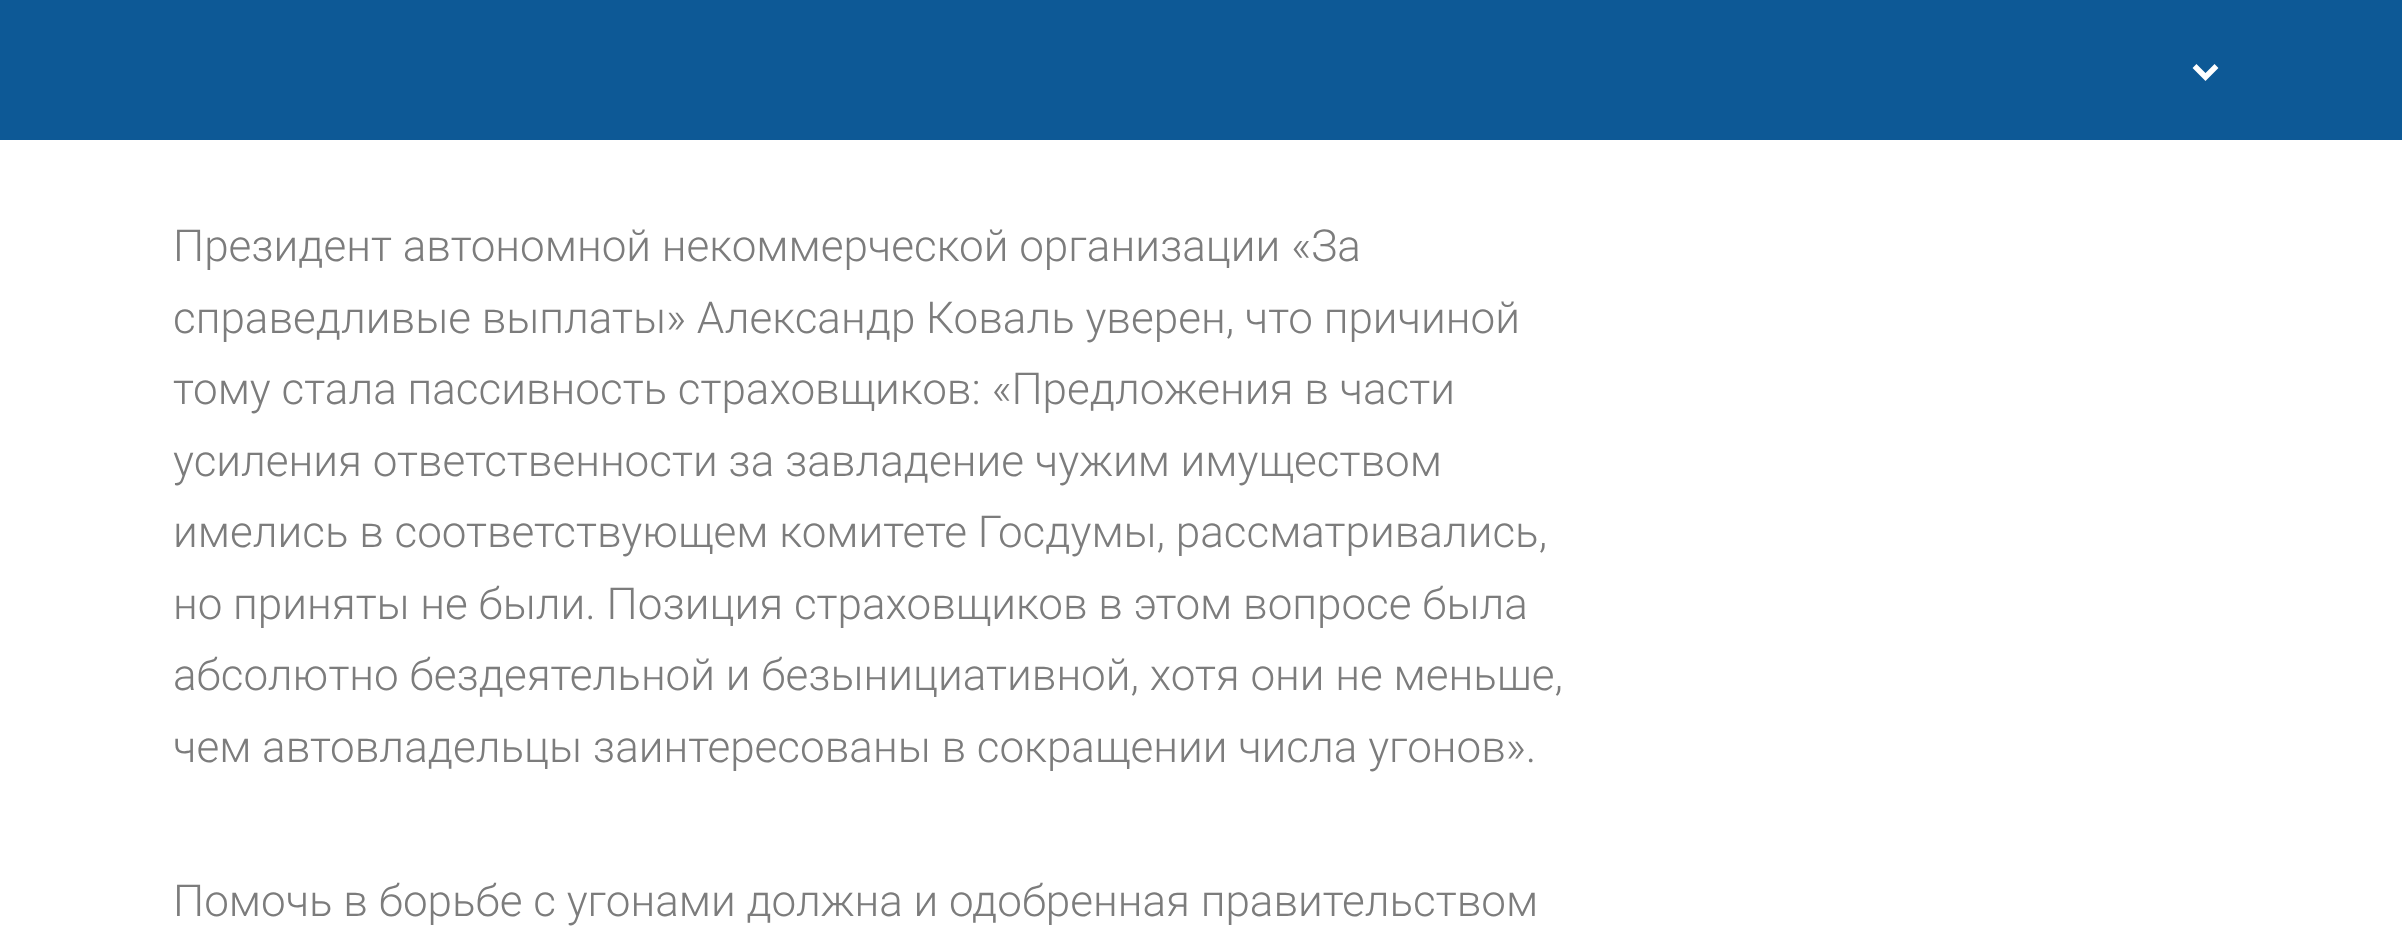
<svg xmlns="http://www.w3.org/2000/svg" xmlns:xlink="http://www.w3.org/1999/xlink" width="2402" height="936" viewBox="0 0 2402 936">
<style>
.cls-1{font:300 44px Roboto;fill:#7c7c7c}
</style>
<rect width="100%" height="100%" fill="#ffffff"/>
<rect fill="#0d5996" x="0" y="0" width="2402" height="140"/>
<path fill="none" stroke="#ffffff" stroke-width="5.5" d="M2194.5 66L2205.5 77L2216.5 66"/>
<text class="cls-1"><tspan x="173" y="261">Президент автономной некоммерческой организации «За</tspan><tspan x="173" y="333">справедливые выплаты» Александр Коваль уверен, что причиной</tspan><tspan x="173" y="404">тому стала пассивность страховщиков: «Предложения в части</tspan><tspan x="173" y="476">усиления ответственности за завладение чужим имуществом</tspan><tspan x="173" y="547">имелись в соответствующем комитете Госдумы, рассматривались,</tspan><tspan x="173" y="619">но приняты не были. Позиция страховщиков в этом вопросе была</tspan><tspan x="173" y="690">абсолютно бездеятельной и безынициативной, хотя они не меньше,</tspan><tspan x="173" y="762">чем автовладельцы заинтересованы в сокращении числа угонов».</tspan></text>
<text class="cls-1" x="173" y="916">Помочь в борьбе с угонами должна и одобренная правительством</text>
</svg>
